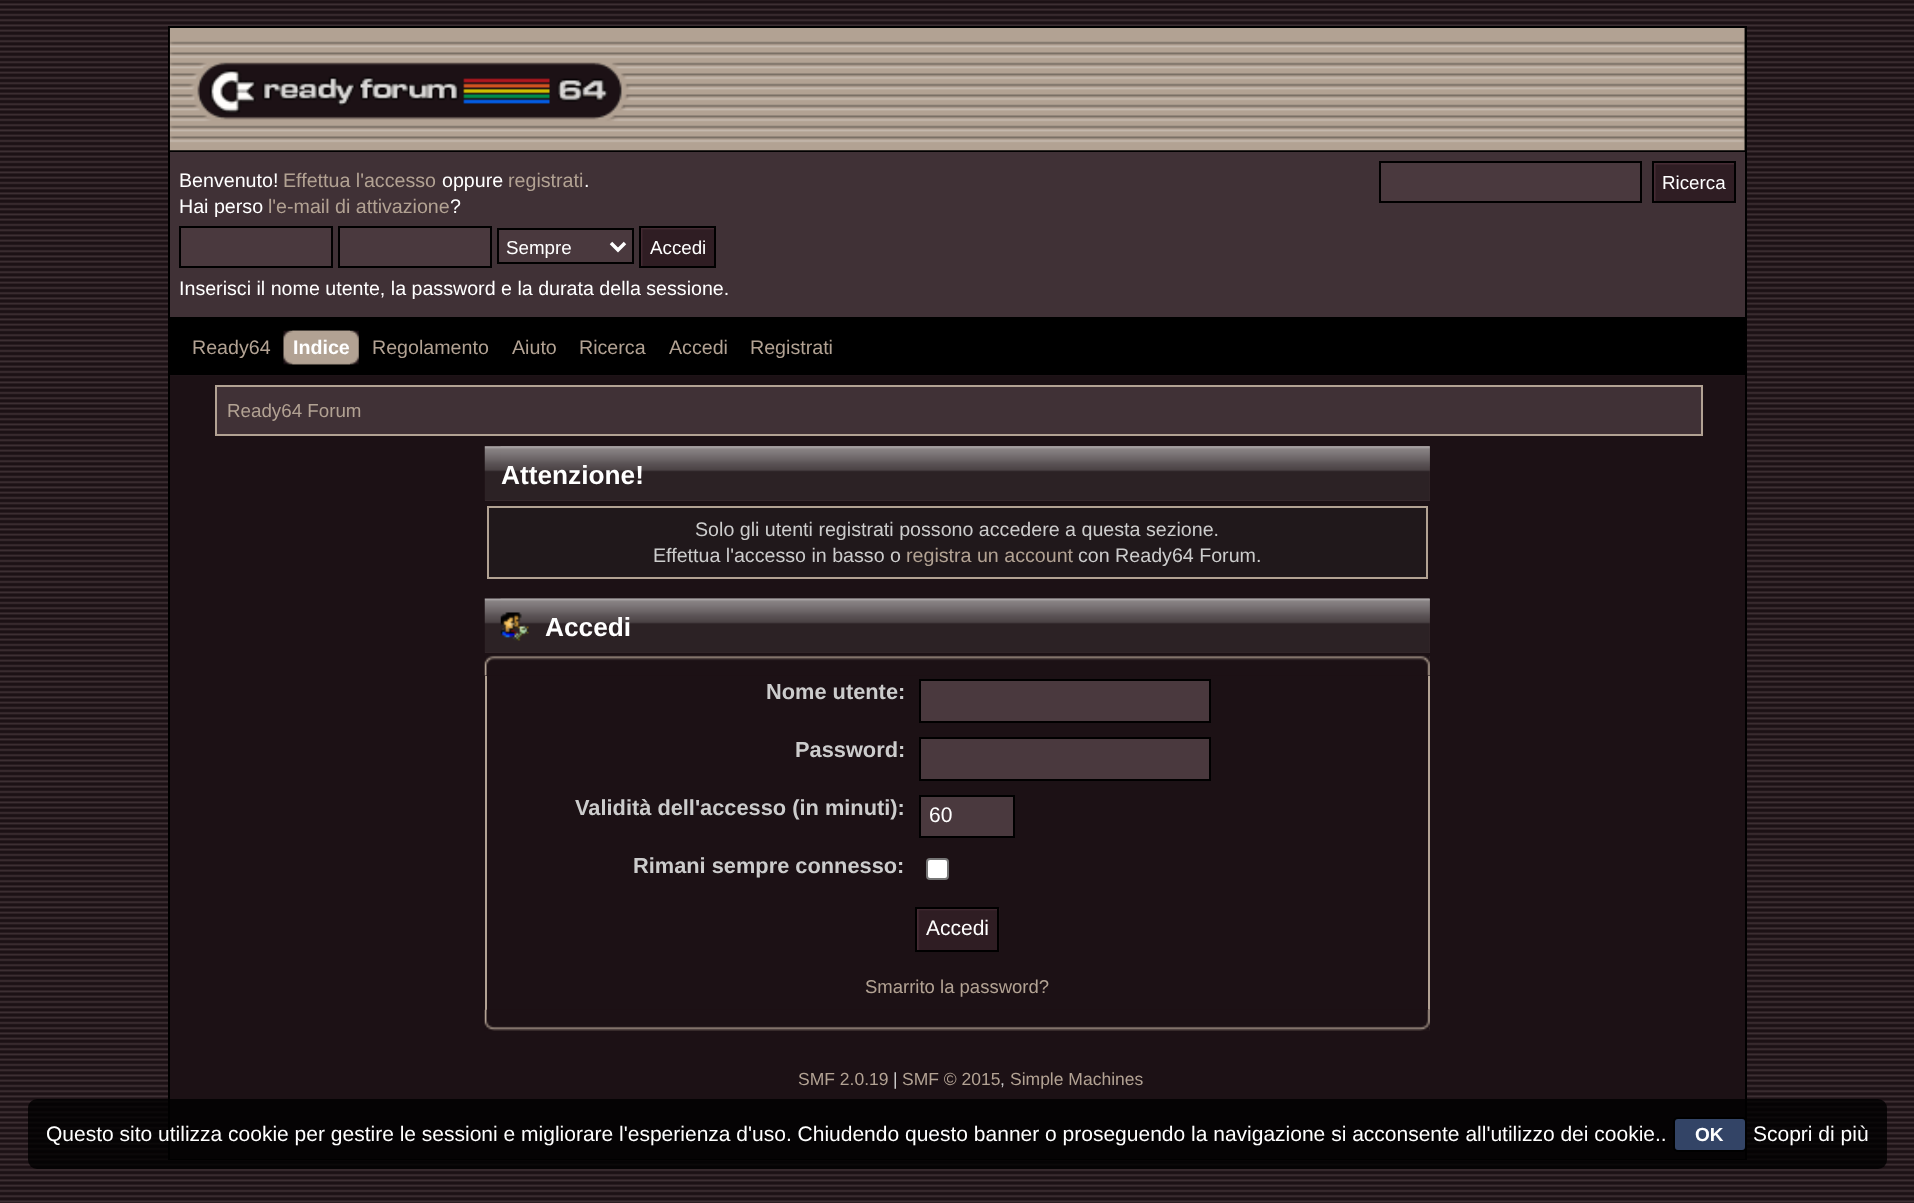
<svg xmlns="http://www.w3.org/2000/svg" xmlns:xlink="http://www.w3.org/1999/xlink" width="1914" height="1203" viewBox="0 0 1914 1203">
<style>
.cls-1{font:19.65px Liberation Sans;fill:#ffffff}
.cls-2{font:19.65px Liberation Sans;fill:#b2a293}
.cls-3{font:18.75px Liberation Sans;fill:#ffffff}
.cls-4{font:bold 19.65px Liberation Sans;fill:#ffffff}
.cls-5{font:18.75px Liberation Sans;fill:#b2a293}
.cls-6{font:bold 26.25px Liberation Sans;fill:#ffffff}
.cls-7{font:19.65px Liberation Sans;fill:#cccccc}
.cls-8{font:bold 21.8px Liberation Sans;fill:#cccccc}
.cls-9{font:21px Liberation Sans;fill:#ffffff}
.cls-10{font:18.5px Liberation Sans;fill:#b2a293}
.cls-11{font:17.5px Liberation Sans;fill:#b2a293}
.cls-12{font:17.5px Liberation Sans;fill:#cccccc}
.cls-13{font:bold 19px Liberation Sans;fill:#ffffff}
</style>
<rect width="100%" height="100%" fill="#ffffff"/>
<image xlink:href="image0.png" x="0" y="0" width="1914" height="1203"/>
<rect fill="none" stroke="#000000" stroke-width="2" x="169" y="27" width="1577" height="1132"/>
<rect fill="#000000" x="170" y="28" width="1575" height="347"/>
<image xlink:href="image1.png" x="169" y="28" width="1576" height="123"/>
<rect fill="#403136" x="170" y="152" width="1575" height="165"/>
<rect fill="#4a393e" stroke="#000000" stroke-width="2" x="180" y="227" width="152" height="40"/>
<rect fill="#4a393e" stroke="#000000" stroke-width="2" x="339" y="227" width="152" height="40"/>
<rect fill="#4a393e" stroke="#000000" stroke-width="2" x="498" y="229" width="135" height="34"/>
<path fill="none" stroke="#ffffff" stroke-width="3.5" d="M611 243L618 250L625 243"/>
<image xlink:href="image2.png" x="641" y="228" width="73" height="38"/>
<rect fill="none" stroke="#000000" stroke-width="2" x="640" y="227" width="75" height="40"/>
<rect fill="#4a393e" stroke="#000000" stroke-width="2" x="1380" y="162" width="261" height="40"/>
<image xlink:href="image3.png" x="1654" y="163" width="80" height="38"/>
<rect fill="none" stroke="#000000" stroke-width="2" x="1653" y="162" width="82" height="40"/>
<image xlink:href="image4.png" x="292" y="330" width="67" height="35"/>
<image xlink:href="image5.png" x="283" y="330" width="67" height="35"/>
<rect fill="#1c1115" x="170" y="376" width="1575" height="654"/>
<rect fill="#403136" stroke="#b2a293" stroke-width="2" x="216" y="386" width="1486" height="49"/>
<rect fill="#403136" x="485" y="446" width="945" height="55"/>
<image xlink:href="image6.png" x="484" y="446" width="946" height="55"/>
<image xlink:href="image7.png" x="500" y="446" width="930" height="20"/>
<rect fill="#20181b" stroke="#b2a293" stroke-width="2" x="488" y="507" width="939" height="71"/>
<rect fill="#403136" x="485" y="599" width="945" height="54"/>
<image xlink:href="image8.png" x="484" y="598" width="946" height="55"/>
<image xlink:href="image9.png" x="500" y="598" width="930" height="20"/>
<image xlink:href="image10.png" x="500" y="612" width="29" height="29"/>
<image xlink:href="image11.png" x="484" y="655" width="946" height="21"/>
<image xlink:href="image12.png" x="1421" y="655" width="9" height="21"/>
<rect fill="#b2a293" x="1428" y="676" width="2" height="334"/>
<rect fill="#b2a293" x="485" y="676" width="2" height="334"/>
<rect fill="#4a393e" stroke="#000000" stroke-width="2" x="920" y="680" width="290" height="42"/>
<rect fill="#4a393e" stroke="#000000" stroke-width="2" x="920" y="738" width="290" height="42"/>
<rect fill="#4a393e" stroke="#000000" stroke-width="2" x="920" y="796" width="94" height="41"/>
<rect fill="#ffffff" stroke="#767676" stroke-width="2" x="927" y="859" width="21" height="20" rx="3"/>
<image xlink:href="image13.png" x="917" y="908" width="83" height="44"/>
<rect fill="none" stroke="#000000" stroke-width="2" x="916" y="908" width="82" height="43"/>
<image xlink:href="image14.png" x="484" y="1009" width="946" height="22"/>
<image xlink:href="image15.png" x="520" y="1009" width="910" height="22"/>
<rect fill="#1c1115" x="170" y="1032" width="1575" height="127"/>
<rect fill="#000000" fill-opacity="0.8" x="28" y="1099" width="1859" height="70" rx="9"/>
<rect fill="#334466" stroke="#000000" stroke-width="2" x="1674" y="1118" width="72" height="33" rx="4"/>
<text class="cls-1" x="179" y="187">Benvenuto!</text>
<text class="cls-2" x="283" y="187">Effettua l'accesso</text>
<text class="cls-1" x="442" y="187">oppure</text>
<text class="cls-2" x="508" y="187">registrati</text>
<text class="cls-1" x="584" y="187">.</text>
<text class="cls-1" x="179" y="213">Hai perso</text>
<text class="cls-2" x="268" y="213">l'e-mail di attivazione</text>
<text class="cls-1" x="450" y="213">?</text>
<text class="cls-3" x="506" y="254">Sempre</text>
<text class="cls-3" x="650" y="254">Accedi</text>
<text class="cls-1" x="179" y="295">Inserisci il nome utente, la password e la durata della sessione.</text>
<text class="cls-3" x="1662" y="189">Ricerca</text>
<text class="cls-2" x="192" y="354">Ready64</text>
<text class="cls-4" x="293" y="354">Indice</text>
<text class="cls-2" x="372" y="354">Regolamento</text>
<text class="cls-2" x="512" y="354">Aiuto</text>
<text class="cls-2" x="579" y="354">Ricerca</text>
<text class="cls-2" x="669" y="354">Accedi</text>
<text class="cls-2" x="750" y="354">Registrati</text>
<text class="cls-5" x="227" y="417">Ready64 Forum</text>
<text class="cls-6" x="501" y="484">Attenzione!</text>
<text class="cls-7" x="695" y="536">Solo gli utenti registrati possono accedere a questa sezione.</text>
<text class="cls-7" x="653" y="562">Effettua l'accesso in basso o</text>
<text class="cls-2" x="906" y="562">registra un account</text>
<text class="cls-7" x="1078" y="562">con Ready64 Forum.</text>
<text class="cls-6" x="545" y="636">Accedi</text>
<text class="cls-8" x="766" y="699">Nome utente:</text>
<text class="cls-8" x="795" y="757">Password:</text>
<text class="cls-8" x="575" y="815">Validità dell'accesso (in minuti):</text>
<text class="cls-9" x="929" y="822">60</text>
<text class="cls-8" x="633" y="873">Rimani sempre connesso:</text>
<text class="cls-9" x="926" y="935">Accedi</text>
<text class="cls-10" x="865" y="993">Smarrito la password?</text>
<text class="cls-11" x="798" y="1085">SMF 2.0.19</text>
<text class="cls-12" x="893" y="1085">|</text>
<text class="cls-11" x="902" y="1085">SMF © 2015</text>
<text class="cls-12" x="1000" y="1085">,</text>
<text class="cls-11" x="1010" y="1085">Simple Machines</text>
<text class="cls-9" x="46" y="1141">Questo sito utilizza cookie per gestire le sessioni e migliorare l'esperienza d'uso. Chiudendo questo banner o proseguendo la navigazione si acconsente all'utilizzo dei cookie..</text>
<text class="cls-13" x="1695" y="1141">OK</text>
<text class="cls-9" x="1753" y="1141">Scopri di più</text>
</svg>
